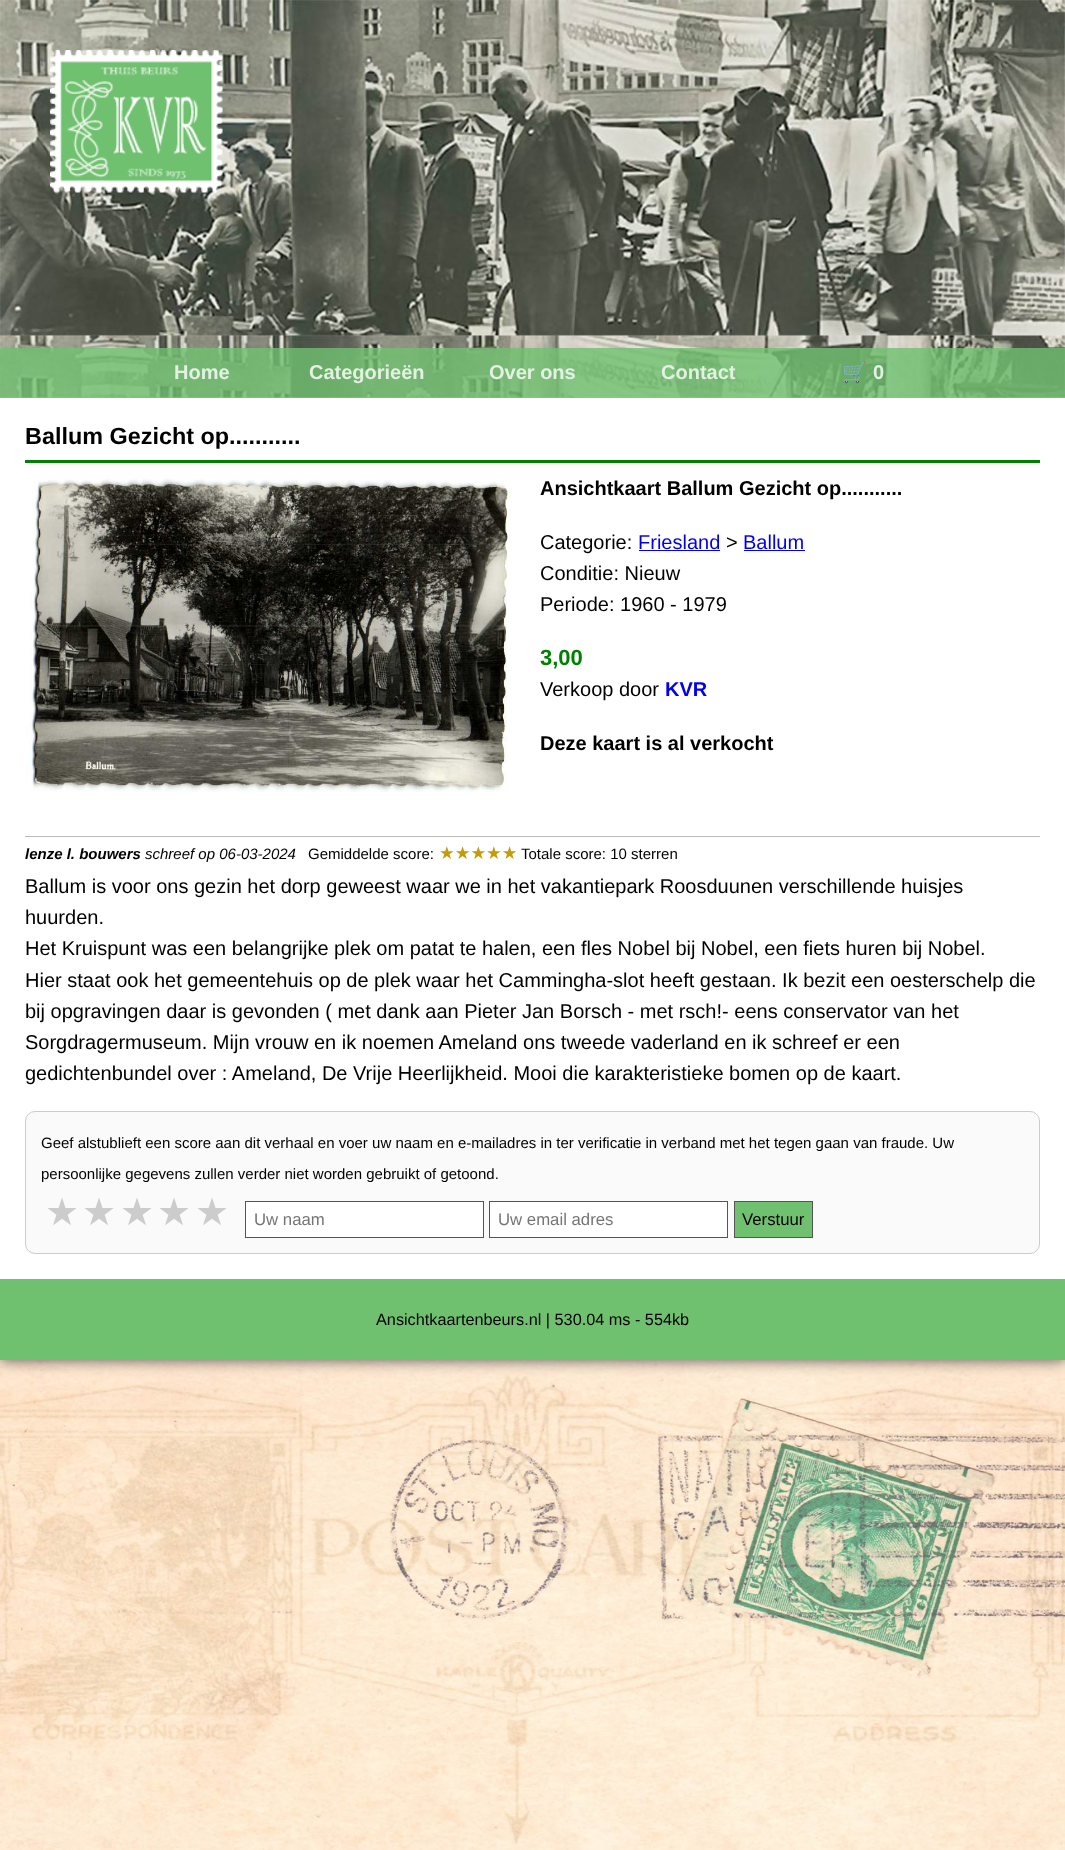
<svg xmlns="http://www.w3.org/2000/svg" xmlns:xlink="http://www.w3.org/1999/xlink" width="1065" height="1850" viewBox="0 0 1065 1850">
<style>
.cls-1{font:bold 20px Liberation Sans;fill:#e3f1e3}
.cls-2{font:bold 20px Noto Color Emoji;fill:#e3f1e3}
.cls-3{font:bold 23.4px Liberation Sans;fill:#000000}
.cls-4{font:bold 20px Liberation Sans;fill:#000000}
.cls-5{font:20px Liberation Sans;fill:#000000}
.cls-6{font:20px Liberation Sans;fill:#0000ee}
.cls-7{font:bold 22px Liberation Sans;fill:#008000}
.cls-8{font:bold 20px Liberation Sans;fill:#0000ee}
.cls-9{font:italic bold 15px Liberation Sans;fill:#000000}
.cls-10{font:italic 15px Liberation Sans;fill:#000000}
.cls-11{font:15px Liberation Sans;fill:#000000}
.cls-12{font:17.5px DejaVu Sans;fill:#c59b08}
.cls-13{font:38px DejaVu Sans;fill:#cccccc}
.cls-14{font:16.75px Liberation Sans;fill:#757575}
.cls-15{font:16.75px Liberation Sans;fill:#000000}
.cls-16{font:16.25px Liberation Sans;fill:#000000}
</style>
<rect width="100%" height="100%" fill="#ffffff"/>
<image xlink:href="image0.png" x="0" y="1360" width="1065" height="490"/>
<rect fill="#555555" filter="blur(7.5px)" x="0" y="0" width="1065" height="1360"/>
<rect fill="#ffffff" x="0" y="397" width="1065" height="882"/>
<image xlink:href="image1.png" x="0" y="0" width="1065" height="398"/>
<image xlink:href="image2.png" x="50" y="50" width="173" height="143"/>
<rect fill="#6fc16f" fill-opacity="0.8" x="0" y="348" width="1065" height="50"/>
<rect fill="#008000" x="25" y="460" width="1015" height="3"/>
<image xlink:href="image3.png" x="25" y="478" width="487" height="314"/>
<rect fill="#0000ee" x="639" y="550" width="81" height="1"/>
<rect fill="#0000ee" x="744" y="550" width="61" height="1"/>
<rect fill="#bbbbbb" x="25" y="836" width="1015" height="1"/>
<rect fill="#fafafa" stroke="#cccccc" x="25.5" y="1111.5" width="1014" height="142" rx="9.5"/>
<rect fill="#ffffff" stroke="#555555" x="245.5" y="1201.5" width="238" height="36"/>
<rect fill="#ffffff" stroke="#555555" x="489.5" y="1201.5" width="238" height="36"/>
<rect fill="#6fc16f" stroke="#555555" x="734.5" y="1201.5" width="78" height="36"/>
<rect fill="#6fc16f" x="0" y="1279" width="1065" height="81"/>
<text class="cls-1" x="174" y="379">Home</text>
<text class="cls-1" x="309" y="379">Categorieën</text>
<text class="cls-1" x="489" y="379">Over ons</text>
<text class="cls-1" x="661" y="379">Contact</text>
<text class="cls-2" x="842" y="379">🛒</text>
<text class="cls-1" x="873" y="379">0</text>
<text class="cls-3" x="25" y="444">Ballum Gezicht op...........</text>
<text class="cls-4" x="540" y="495">Ansichtkaart Ballum Gezicht op...........</text>
<text class="cls-5" x="540" y="549">Categorie:</text>
<text class="cls-6" x="638" y="549">Friesland</text>
<text class="cls-5" x="726" y="549">&gt;</text>
<text class="cls-6" x="743" y="549">Ballum</text>
<text class="cls-5"><tspan x="540" y="580">Conditie: Nieuw</tspan><tspan x="540" y="611">Periode: 1960 - 1979</tspan></text>
<text class="cls-7" x="540" y="665">3,00</text>
<text class="cls-5" x="540" y="696">Verkoop door</text>
<text class="cls-8" x="665" y="696">KVR</text>
<text class="cls-4" x="540" y="750">Deze kaart is al verkocht</text>
<text class="cls-9" x="25" y="859">lenze l. bouwers</text>
<text class="cls-10" x="145" y="859">schreef op 06-03-2024</text>
<text class="cls-11" x="308" y="859">Gemiddelde score:</text>
<text class="cls-12" x="439" y="859">★★★★★</text>
<text class="cls-11" x="521" y="859">Totale score: 10 sterren</text>
<text class="cls-5"><tspan x="25" y="893">Ballum is voor ons gezin het dorp geweest waar we in het vakantiepark Roosduunen verschillende huisjes</tspan><tspan x="25" y="924">huurden.</tspan><tspan x="25" y="955">Het Kruispunt was een belangrijke plek om patat te halen, een fles Nobel bij Nobel, een fiets huren bij Nobel.</tspan><tspan x="25" y="987">Hier staat ook het gemeentehuis op de plek waar het Cammingha-slot heeft gestaan. Ik bezit een oesterschelp die</tspan><tspan x="25" y="1018">bij opgravingen daar is gevonden ( met dank aan Pieter Jan Borsch - met rsch!- eens conservator van het</tspan><tspan x="25" y="1049">Sorgdragermuseum. Mijn vrouw en ik noemen Ameland ons tweede vaderland en ik schreef er een</tspan><tspan x="25" y="1080">gedichtenbundel over : Ameland, De Vrije Heerlijkheid. Mooi die karakteristieke bomen op de kaart.</tspan></text>
<text class="cls-11" x="41" y="1148">Geef alstublieft een score aan dit verhaal en voer uw naam en e-mailadres in ter verificatie in verband met het tegen gaan van fraude. Uw</text>
<text class="cls-11" x="41" y="1179">persoonlijke gegevens zullen verder niet worden gebruikt of getoond.</text>
<text class="cls-13" x="45" y="1225">★</text>
<text class="cls-13" x="82" y="1225">★</text>
<text class="cls-13" x="120" y="1225">★</text>
<text class="cls-13" x="157" y="1225">★</text>
<text class="cls-13" x="195" y="1225">★</text>
<text class="cls-14" x="254" y="1225">Uw naam</text>
<text class="cls-14" x="498" y="1225">Uw email adres</text>
<text class="cls-15" x="742" y="1225">Verstuur</text>
<text class="cls-16" x="376" y="1325">Ansichtkaartenbeurs.nl | 530.04 ms - 554kb</text>
</svg>
